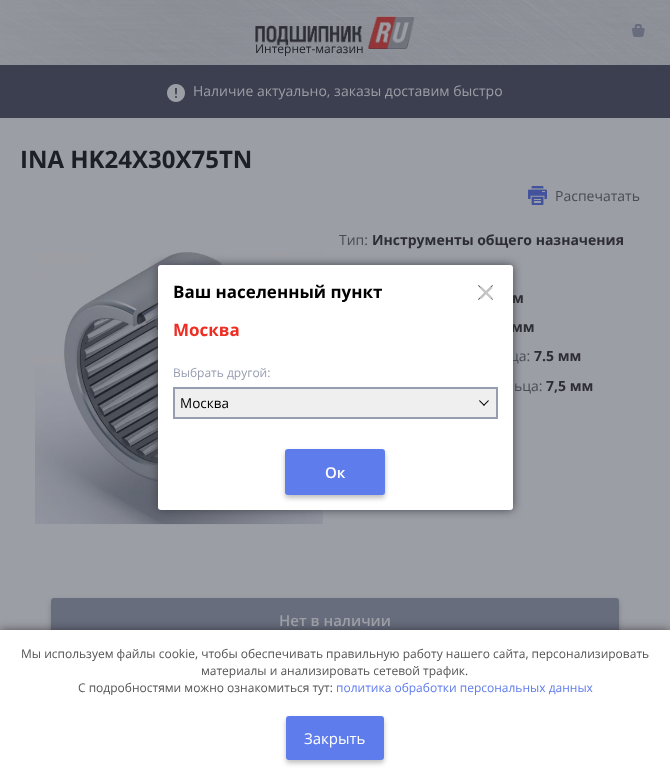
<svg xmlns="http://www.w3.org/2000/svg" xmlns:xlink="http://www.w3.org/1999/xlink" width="670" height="775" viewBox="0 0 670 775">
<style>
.cls-1{font:12px Open Sans;fill:#1d1f26}
.cls-2{font:14px Open Sans;fill:#9c9ea5}
.cls-3{font:bold 24px Open Sans;fill:#1d1f26}
.cls-4{font:14px Open Sans;fill:#4a4c53}
.cls-5{font:bold 14px Open Sans;fill:#2d2d34}
.cls-6{font:600 15px Open Sans;fill:#9c9ea5}
.cls-7{font:bold 17px Open Sans;fill:#000000}
.cls-8{font:28px Liberation Sans;fill:#c6c6c6}
.cls-9{font:bold 17px Open Sans;fill:#ee2e24}
.cls-10{font:12px Open Sans;fill:#979db1}
.cls-11{font:13.5px Open Sans;fill:#000000}
.cls-12{font:600 15px Open Sans;fill:#ffffff}
.cls-13{font:12px Open Sans;fill:#545454}
.cls-14{font:12px Open Sans;fill:#5f7ced}
.cls-15{font:15px Open Sans;fill:#ffffff}
</style>
<rect width="100%" height="100%" fill="#9c9ea5"/>
<image xlink:href="image0.png" x="0" y="0" width="670" height="65"/>
<image xlink:href="image1.png" x="632" y="24" width="13" height="13"/>
<image xlink:href="image2.png" x="255" y="16" width="160" height="33"/>
<rect fill="#3b3f4f" x="0" y="65" width="670" height="53"/>
<image xlink:href="image3.png" x="167" y="84" width="18" height="18"/>
<image xlink:href="image4.png" x="528" y="186" width="19" height="20"/>
<image xlink:href="image5.png" x="35" y="252" width="288" height="273"/>
<rect fill="#1d1f26" fill-opacity="0.25" filter="blur(2.5px)" x="51" y="601" width="568" height="44" rx="3"/>
<rect fill="#686d7e" x="51" y="598" width="568" height="44" rx="3"/>
<rect fill="#424551" filter="blur(5px)" x="158" y="265" width="355" height="245" rx="3"/>
<rect fill="#000000" fill-opacity="0.5" filter="blur(5px)" x="0" y="630" width="670" height="145"/>
<rect fill="#ffffff" x="0" y="630" width="670" height="145"/>
<rect fill="#000000" fill-opacity="0.25" filter="blur(2.5px)" x="286" y="719" width="98" height="44" rx="3"/>
<rect fill="#5f7ced" x="286" y="716" width="98" height="44" rx="3"/>
<text class="cls-1" x="255" y="53">Интернет-магазин</text>
<text class="cls-2" x="193" y="96">Наличие актуально, заказы доставим быстро</text>
<text class="cls-3" x="20" y="168">INA HK24X30X75TN</text>
<text class="cls-4" x="555" y="201">Распечатать</text>
<text class="cls-4" x="339" y="245">Тип:</text>
<text class="cls-5" x="372" y="245">Инструменты общего назначения</text>
<text class="cls-5" x="512" y="303">м</text>
<text class="cls-5" x="511" y="332">мм</text>
<text class="cls-4" x="510" y="361">ца:</text>
<text class="cls-5" x="534" y="361">7.5 мм</text>
<text class="cls-4" x="514" y="391">ьца:</text>
<text class="cls-5" x="546" y="391">7,5 мм</text>
<text class="cls-6" x="279" y="626">Нет в наличии</text>
<rect fill="#ffffff" x="158" y="265" width="355" height="245" rx="3"/>
<text class="cls-7" x="173" y="298">Ваш населенный пункт</text>
<image xlink:href="image6.png" x="478" y="285" width="15" height="15"/>
<text class="cls-8" x="478" y="302">×</text>
<text class="cls-9" x="173" y="336">Москва</text>
<text class="cls-10" x="173" y="377">Выбрать другой:</text>
<rect fill="#efefef" stroke="#979db1" stroke-width="2" x="174" y="388" width="323" height="30"/>
<text class="cls-11" x="180" y="408">Москва</text>
<image xlink:href="image7.png" x="479" y="400" width="10" height="6"/>
<rect fill="#000000" fill-opacity="0.25" filter="blur(2.5px)" x="285" y="452" width="100" height="46" rx="3"/>
<rect fill="#5f7ced" x="285" y="449" width="100" height="46" rx="3"/>
<text class="cls-12" x="325" y="478">Ок</text>
<text class="cls-13" x="21" y="658">Мы используем файлы cookie, чтобы обеспечивать правильную работу нашего сайта, персонализировать</text>
<text class="cls-13" x="201" y="675">материалы и анализировать сетевой трафик.</text>
<text class="cls-13" x="78" y="692">С подробностями можно ознакомиться тут:</text>
<text class="cls-14" x="336" y="692">политика обработки персональных данных</text>
<text class="cls-15" x="304" y="744">Закрыть</text>
</svg>
